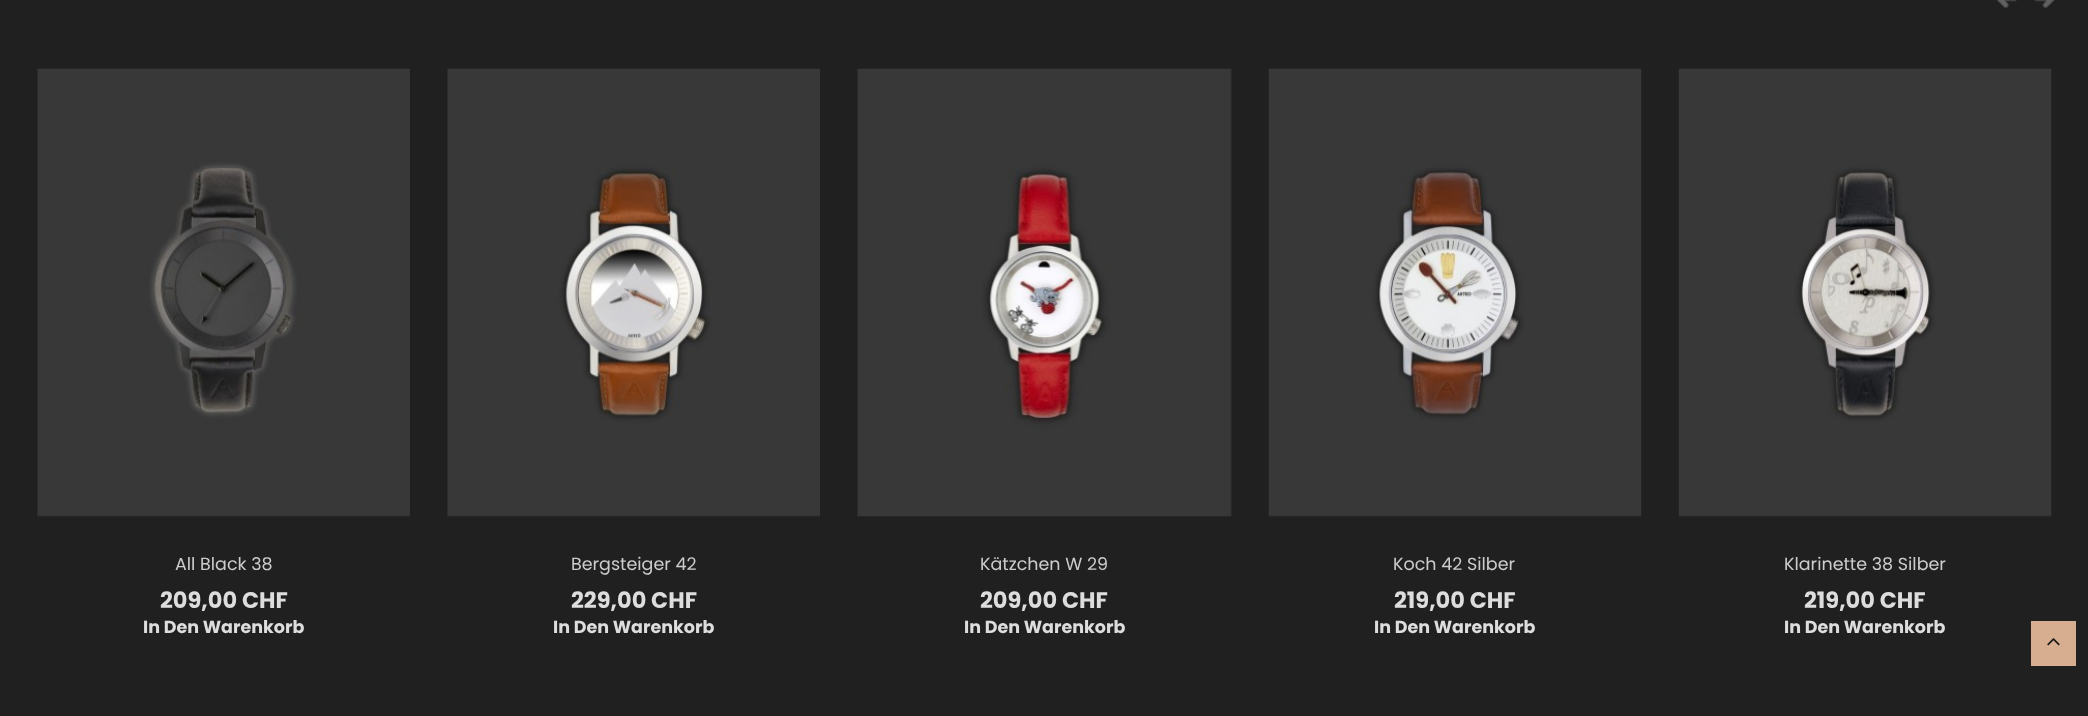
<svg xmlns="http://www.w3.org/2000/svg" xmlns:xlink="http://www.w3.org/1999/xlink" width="2088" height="716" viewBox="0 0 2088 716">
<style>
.cls-1{font:17.5px Poppins;fill:#cccccc}
.cls-2{font:bold 22.5px Poppins;fill:#dddddd}
.cls-3{font:bold 17.5px Poppins;fill:#dddddd}
</style>
<rect width="100%" height="100%" fill="#202020"/>
<image xlink:href="image0.png" x="1996" y="0" width="21" height="8"/>
<image xlink:href="image1.png" x="2034" y="0" width="21" height="8"/>
<image xlink:href="image2.png" x="37" y="68" width="373" height="449"/>
<image xlink:href="image3.png" x="447" y="68" width="373" height="449"/>
<image xlink:href="image4.png" x="857" y="68" width="375" height="449"/>
<image xlink:href="image5.png" x="1268" y="68" width="374" height="449"/>
<image xlink:href="image6.png" x="1678" y="68" width="374" height="449"/>
<rect fill="#d7ae8f" x="2031" y="621" width="45" height="45"/>
<image xlink:href="image7.png" x="2047" y="638" width="13" height="8"/>
<text class="cls-1" x="175" y="570">All Black 38</text>
<text class="cls-2" x="160" y="608">209,00 CHF</text>
<text class="cls-3" x="143" y="633">In Den Warenkorb</text>
<text class="cls-1" x="571" y="570">Bergsteiger 42</text>
<text class="cls-2" x="571" y="608">229,00 CHF</text>
<text class="cls-3" x="553" y="633">In Den Warenkorb</text>
<text class="cls-1" x="980" y="570">Kätzchen W 29</text>
<text class="cls-2" x="980" y="608">209,00 CHF</text>
<text class="cls-3" x="964" y="633">In Den Warenkorb</text>
<text class="cls-1" x="1393" y="570">Koch 42 Silber</text>
<text class="cls-2" x="1394" y="608">219,00 CHF</text>
<text class="cls-3" x="1374" y="633">In Den Warenkorb</text>
<text class="cls-1" x="1784" y="570">Klarinette 38 Silber</text>
<text class="cls-2" x="1804" y="608">219,00 CHF</text>
<text class="cls-3" x="1784" y="633">In Den Warenkorb</text>
</svg>
